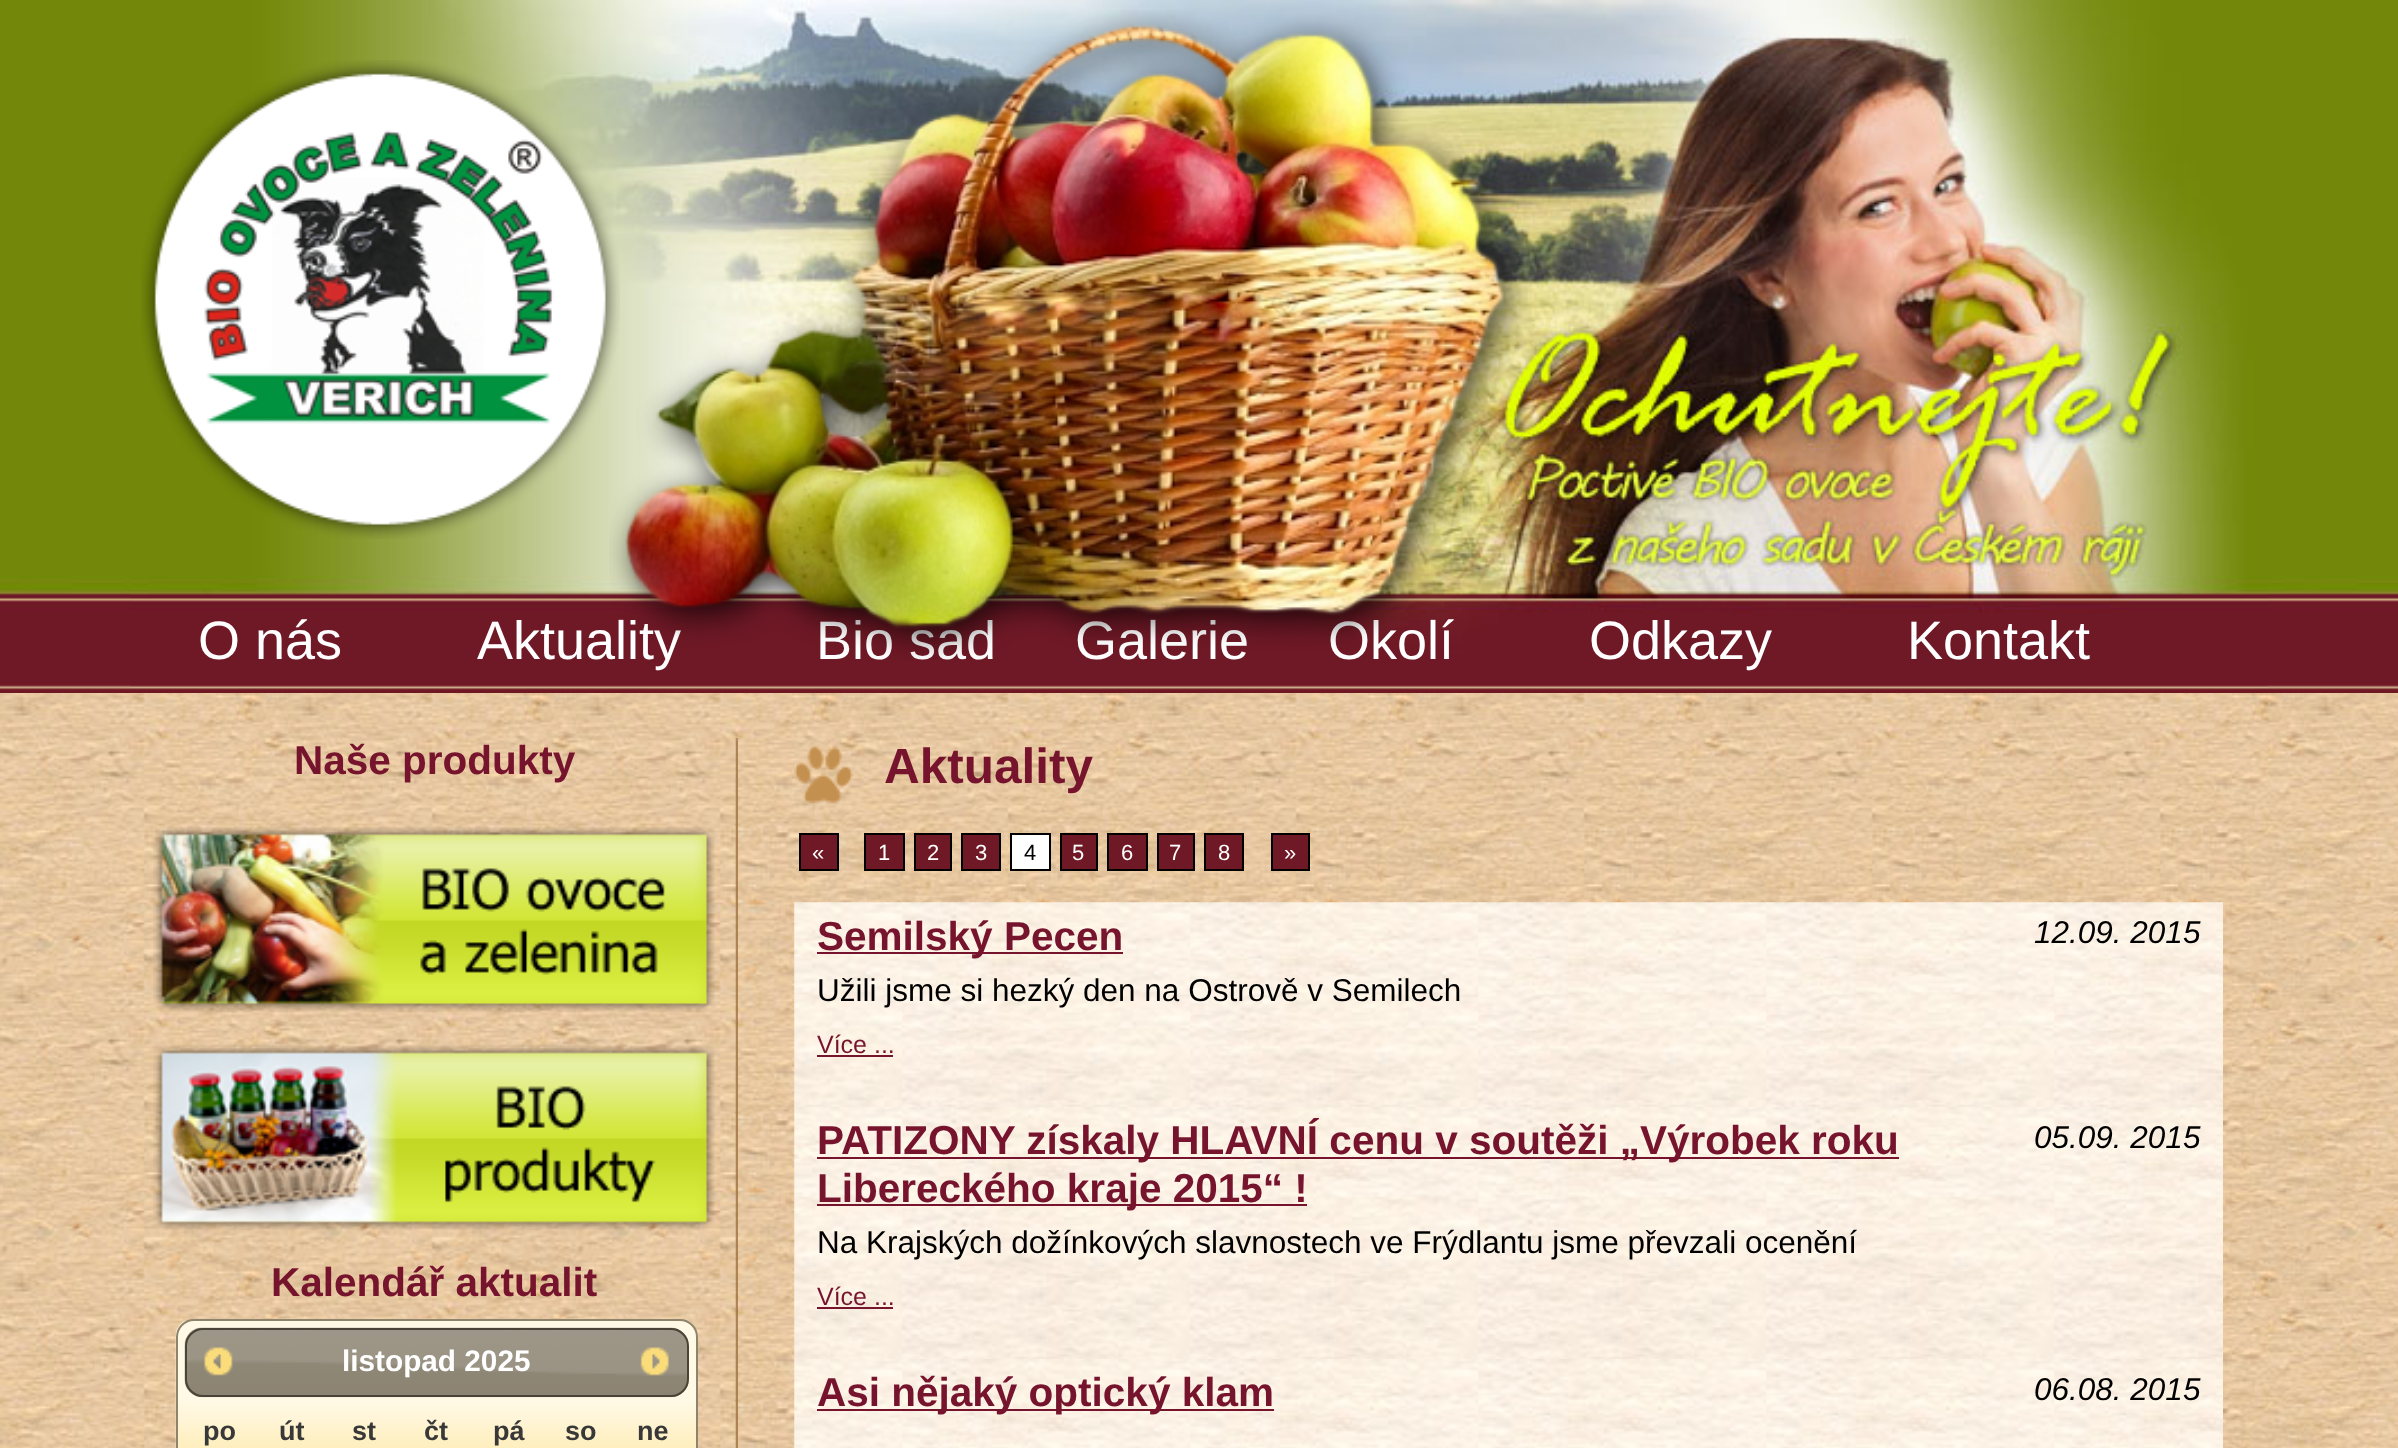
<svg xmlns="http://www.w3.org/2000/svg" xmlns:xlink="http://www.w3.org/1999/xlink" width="2398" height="1448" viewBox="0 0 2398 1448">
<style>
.cls-1{font:54px Liberation Sans;fill:#ffffff}
.cls-2{font:bold 40.5px Liberation Sans;fill:#76132d}
.cls-3{font:bold 29.75px Liberation Sans;fill:#ffffff}
.cls-4{font:bold 27px Liberation Sans;fill:#383838}
.cls-5{font:bold 49.5px Liberation Sans;fill:#76132d}
.cls-6{font:22px Liberation Sans;fill:#ffffff}
.cls-7{font:22px Liberation Sans;fill:#000000}
.cls-8{font:italic 31.5px Liberation Sans;fill:#000000}
.cls-9{font:31.5px Liberation Sans;fill:#000000}
.cls-10{font:25px Liberation Sans;fill:#76132d}
</style>
<rect width="100%" height="100%" fill="#ffffff"/>
<image xlink:href="image0.png" x="0" y="693" width="2398" height="755"/>
<image xlink:href="image1.png" x="0" y="0" width="2398" height="693"/>
<image xlink:href="image2.png" x="130" y="0" width="2138" height="688"/>
<image xlink:href="image3.png" x="141" y="60" width="479" height="479"/>
<image xlink:href="image5.png" x="735" y="738" width="3" height="710"/>
<image xlink:href="image6.png" x="153" y="827" width="562" height="185"/>
<image xlink:href="image7.png" x="153" y="1045" width="562" height="185"/>
<image xlink:href="image8.png" x="175" y="1320" width="523" height="128"/>
<rect fill="none" stroke="#8e846b" stroke-width="2" x="177" y="1320" width="520" height="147" rx="17"/>
<image xlink:href="image9.png" x="184" y="1327" width="505" height="71"/>
<rect fill="none" stroke="#494437" stroke-width="2" x="186" y="1329" width="502" height="67" rx="17"/>
<image xlink:href="image10.png" x="204" y="1347" width="29" height="29"/>
<image xlink:href="image11.png" x="640" y="1347" width="29" height="29"/>
<image xlink:href="image12.png" x="794" y="746" width="59" height="58"/>
<rect fill="#6f1926" stroke="#000000" stroke-width="2" x="800" y="834" width="38" height="36"/>
<rect fill="#6f1926" stroke="#000000" stroke-width="2" x="865" y="834" width="39" height="36"/>
<rect fill="#6f1926" stroke="#000000" stroke-width="2" x="915" y="834" width="36" height="36"/>
<rect fill="#6f1926" stroke="#000000" stroke-width="2" x="962" y="834" width="38" height="36"/>
<rect fill="#ffffff" stroke="#000000" stroke-width="2" x="1011" y="834" width="39" height="36"/>
<rect fill="#6f1926" stroke="#000000" stroke-width="2" x="1061" y="834" width="36" height="36"/>
<rect fill="#6f1926" stroke="#000000" stroke-width="2" x="1108" y="834" width="39" height="36"/>
<rect fill="#6f1926" stroke="#000000" stroke-width="2" x="1158" y="834" width="36" height="36"/>
<rect fill="#6f1926" stroke="#000000" stroke-width="2" x="1205" y="834" width="38" height="36"/>
<rect fill="#6f1926" stroke="#000000" stroke-width="2" x="1272" y="834" width="37" height="36"/>
<image xlink:href="image13.png" x="794" y="902" width="1429" height="205"/>
<rect fill="#76132d" x="817" y="952" width="306" height="2"/>
<rect fill="#76132d" x="817" y="1055" width="76" height="2"/>
<image xlink:href="image14.png" x="794" y="1107" width="1429" height="252"/>
<rect fill="#76132d" x="817" y="1157" width="1082" height="2"/>
<rect fill="#76132d" x="817" y="1204" width="490" height="2"/>
<rect fill="#76132d" x="817" y="1307" width="76" height="2"/>
<image xlink:href="image15.png" x="794" y="1359" width="1429" height="89"/>
<rect fill="#76132d" x="817" y="1409" width="457" height="2"/>
<text class="cls-1" x="198" y="659">O nás</text>
<text class="cls-1" x="477" y="659">Aktuality</text>
<text class="cls-1" x="816" y="659">Bio sad</text>
<text class="cls-1" x="1075" y="659">Galerie</text>
<text class="cls-1" x="1328" y="659">Okolí</text>
<image xlink:href="image4.png" x="609" y="10" width="923" height="650"/>
<text class="cls-1" x="1589" y="659">Odkazy</text>
<text class="cls-1" x="1907" y="659">Kontakt</text>
<text class="cls-2" x="294" y="774">Naše produkty</text>
<text class="cls-2" x="271" y="1296">Kalendář aktualit</text>
<text class="cls-3" x="342" y="1371">listopad 2025</text>
<text class="cls-4" x="203" y="1440">po</text>
<text class="cls-4" x="279" y="1440">út</text>
<text class="cls-4" x="352" y="1440">st</text>
<text class="cls-4" x="424" y="1440">čt</text>
<text class="cls-4" x="493" y="1440">pá</text>
<text class="cls-4" x="565" y="1440">so</text>
<text class="cls-4" x="637" y="1440">ne</text>
<text class="cls-5" x="884" y="783">Aktuality</text>
<text class="cls-6" x="812" y="860">«</text>
<text class="cls-6" x="878" y="860">1</text>
<text class="cls-6" x="927" y="860">2</text>
<text class="cls-6" x="975" y="860">3</text>
<text class="cls-7" x="1024" y="860">4</text>
<text class="cls-6" x="1072" y="860">5</text>
<text class="cls-6" x="1121" y="860">6</text>
<text class="cls-6" x="1169" y="860">7</text>
<text class="cls-6" x="1218" y="860">8</text>
<text class="cls-6" x="1284" y="860">»</text>
<text class="cls-2" x="817" y="950">Semilský Pecen</text>
<text class="cls-8" x="2034" y="943">12.09. 2015</text>
<text class="cls-9" x="817" y="1001">Užili jsme si hezký den na Ostrově v Semilech</text>
<text class="cls-10" x="817" y="1053">Více ...</text>
<text class="cls-2"><tspan x="817" y="1154">PATIZONY získaly HLAVNÍ cenu v soutěži „Výrobek roku</tspan><tspan x="817" y="1202">Libereckého kraje 2015“ !</tspan></text>
<text class="cls-8" x="2034" y="1148">05.09. 2015</text>
<text class="cls-9" x="817" y="1253">Na Krajských dožínkových slavnostech ve Frýdlantu jsme převzali ocenění</text>
<text class="cls-10" x="817" y="1305">Více ...</text>
<text class="cls-2" x="817" y="1406">Asi nějaký optický klam</text>
<text class="cls-8" x="2034" y="1400">06.08. 2015</text>
</svg>
